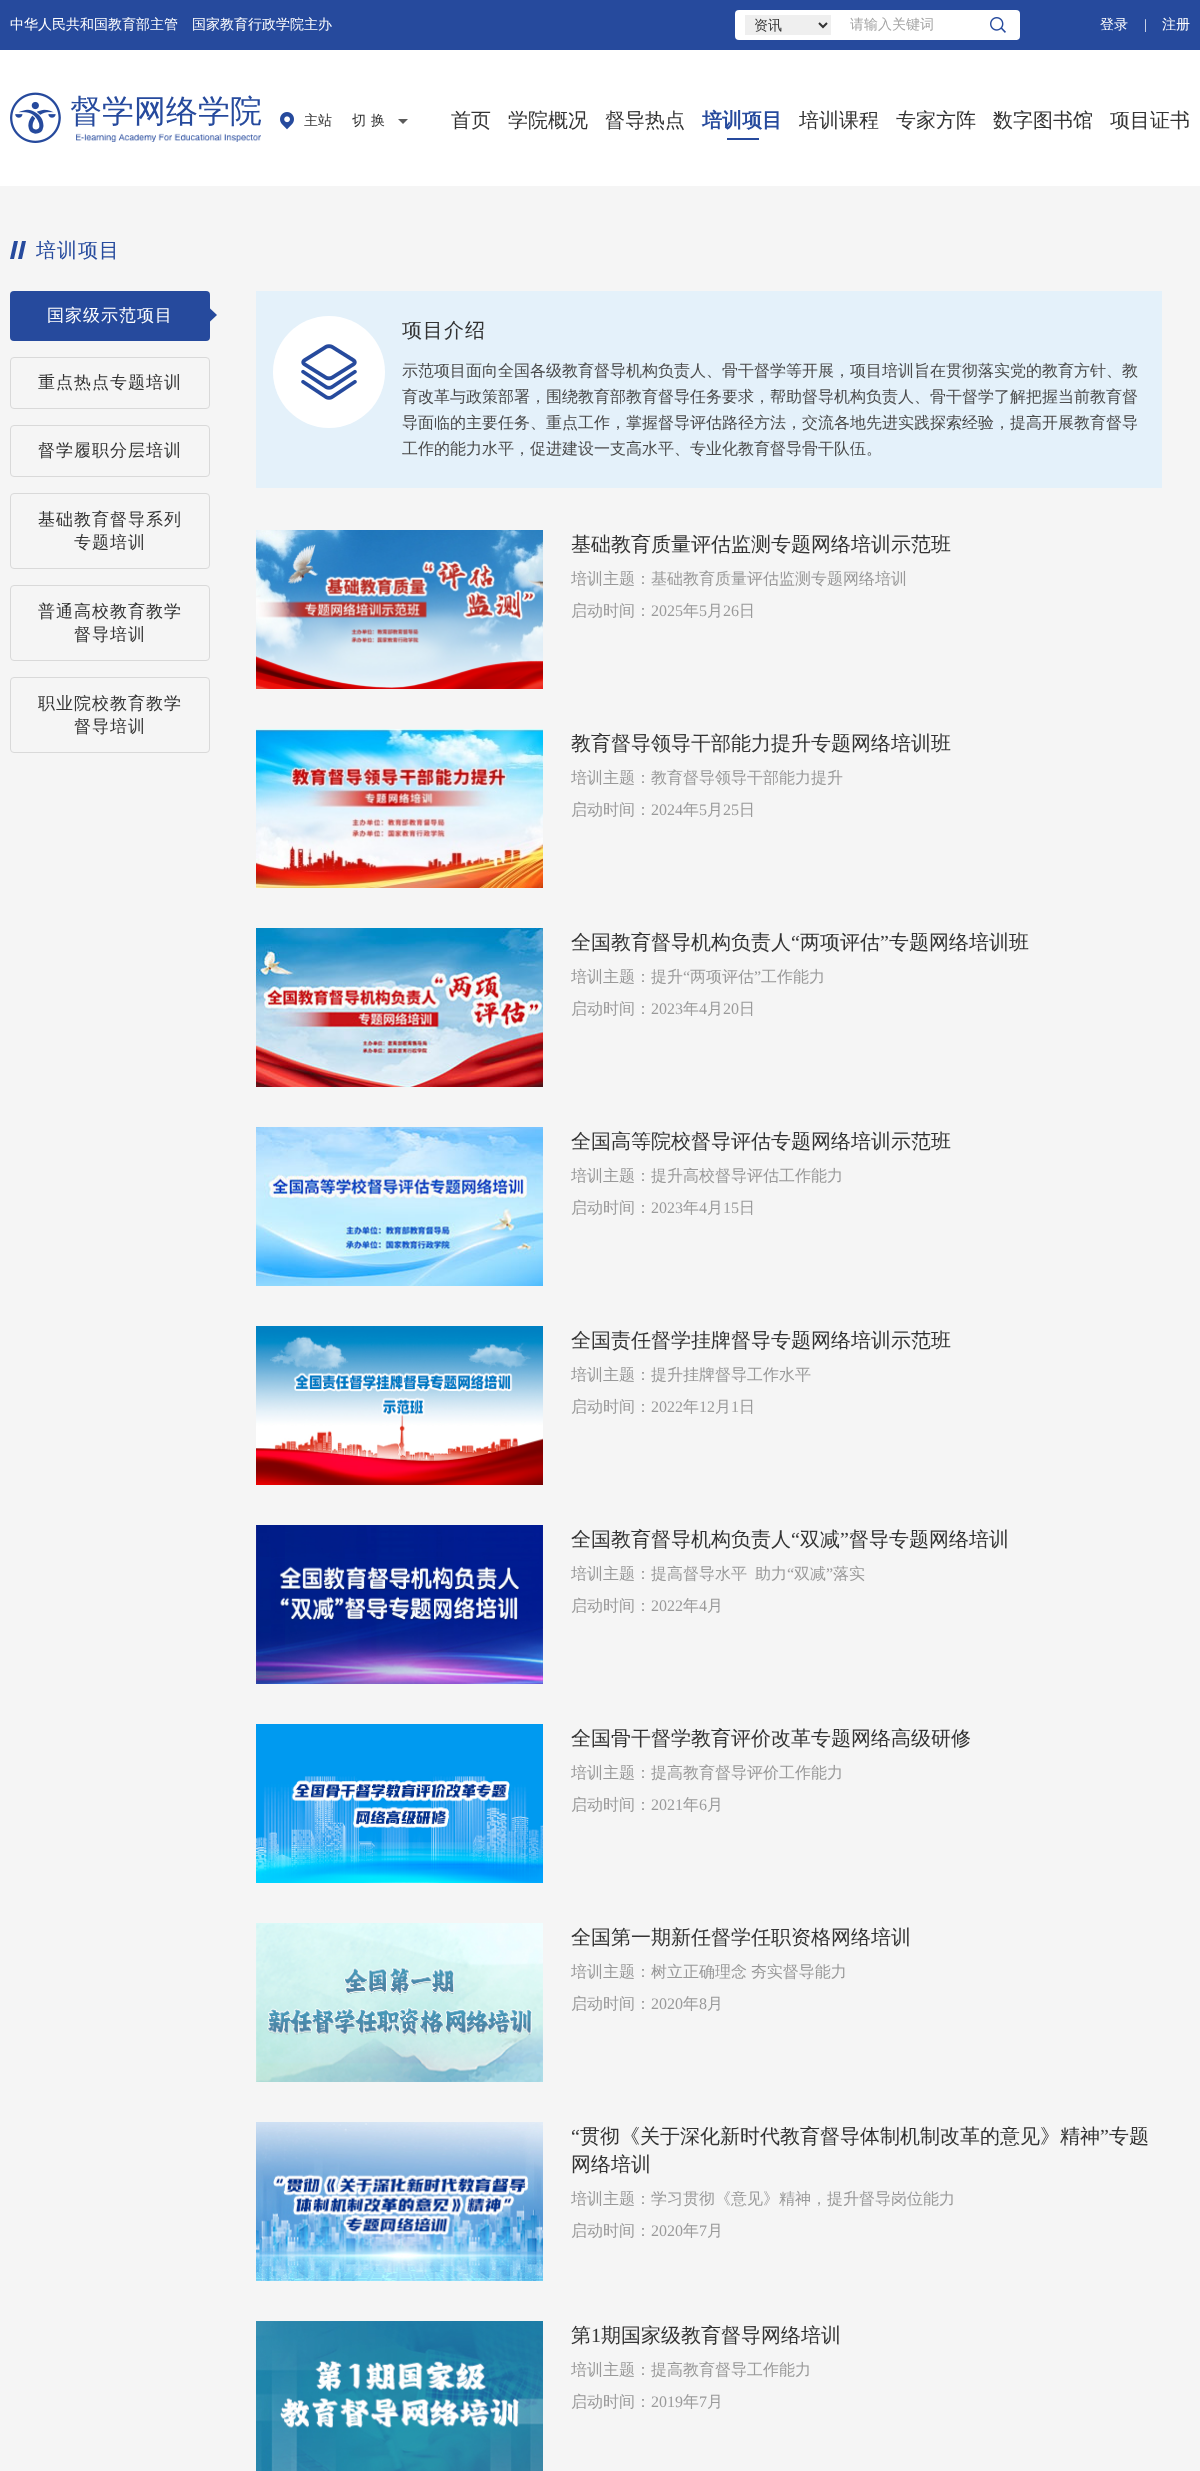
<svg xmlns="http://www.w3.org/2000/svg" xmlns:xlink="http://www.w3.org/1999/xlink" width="1200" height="2471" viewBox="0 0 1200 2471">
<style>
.cls-1{font:500 14px WenQuanYi Zen Hei;fill:#ffffff}
.cls-2{font:500 14px WenQuanYi Zen Hei;fill:#333333}
.cls-3{font:500 14px WenQuanYi Zen Hei;fill:#a5a5a5}
.cls-4{font:14px Liberation Serif;fill:#ffffff}
.cls-5{font:500 32px WenQuanYi Zen Hei;fill:#264a9d}
.cls-6{font:500 14px WenQuanYi Zen Hei;letter-spacing:5px;fill:#333333}
.cls-7{font:500 20px WenQuanYi Zen Hei;fill:#333333}
.cls-8{font:bold 20px WenQuanYi Zen Hei;fill:#264a9d}
.cls-9{font:500 20px WenQuanYi Zen Hei;letter-spacing:1px;fill:#264a9d}
.cls-10{font:500 17px WenQuanYi Zen Hei;letter-spacing:1px;fill:#ffffff}
.cls-11{font:500 17px WenQuanYi Zen Hei;letter-spacing:1px;fill:#333333}
.cls-12{font:500 20px WenQuanYi Zen Hei;letter-spacing:1px;fill:#333333}
.cls-13{font:500 16px WenQuanYi Zen Hei;fill:#4a4a4a}
.cls-14{font:500 16px WenQuanYi Zen Hei;fill:#999999}
.cls-15{font:16px Liberation Serif;fill:#999999}
.cls-16{font:20px Liberation Serif;fill:#333333}
</style>
<rect width="100%" height="100%" fill="#ffffff"/>
<rect fill="#264a9d" x="0" y="0" width="1200" height="50"/>
<rect fill="#ffffff" x="735" y="10" width="285" height="30" rx="4"/>
<rect fill="#efefef" x="745" y="15" width="86" height="20"/>
<path fill="none" stroke="#333333" stroke-width="2" d="M819 23L823 27L827 23"/>
<image xlink:href="image0.png" x="990" y="17" width="16" height="16"/>
<image xlink:href="image1.png" x="10" y="92" width="51" height="51"/>
<image xlink:href="image2.png" x="76" y="133" width="185" height="9"/>
<image xlink:href="image3.png" x="280" y="112" width="14" height="18"/>
<path fill="#5b5b5b" d="M398 119H408L403 124Z"/>
<rect fill="#264a9d" x="727" y="138" width="32" height="2"/>
<rect fill="#f5f5f5" x="0" y="186" width="1200" height="2285"/>
<image xlink:href="image4.png" x="10" y="241" width="16" height="18"/>
<rect fill="#264a9d" x="10" y="291" width="200" height="50" rx="4"/>
<path fill="#264a9d" d="M209 322.5V307.5L217 315Z"/>
<rect fill="none" stroke="#d9d9d9" x="10.5" y="357.5" width="199" height="51" rx="3.5"/>
<rect fill="none" stroke="#d9d9d9" x="10.5" y="425.5" width="199" height="51" rx="3.5"/>
<rect fill="none" stroke="#d9d9d9" x="10.5" y="493.5" width="199" height="75" rx="3.5"/>
<rect fill="none" stroke="#d9d9d9" x="10.5" y="585.5" width="199" height="75" rx="3.5"/>
<rect fill="none" stroke="#d9d9d9" x="10.5" y="677.5" width="199" height="75" rx="3.5"/>
<rect fill="#e4f1fa" x="256" y="291" width="906" height="197"/>
<circle fill="#ffffff" cx="329" cy="372" r="56"/>
<image xlink:href="image5.png" x="301" y="344" width="56" height="56"/>
<image xlink:href="image6.png" x="256" y="530" width="287" height="159"/>
<image xlink:href="image7.png" x="256" y="729" width="287" height="159"/>
<image xlink:href="image8.png" x="256" y="928" width="287" height="159"/>
<image xlink:href="image9.png" x="256" y="1127" width="287" height="159"/>
<image xlink:href="image10.png" x="256" y="1326" width="287" height="159"/>
<image xlink:href="image11.png" x="256" y="1525" width="287" height="159"/>
<image xlink:href="image12.png" x="256" y="1724" width="287" height="159"/>
<image xlink:href="image13.png" x="256" y="1923" width="287" height="159"/>
<image xlink:href="image14.png" x="256" y="2122" width="287" height="159"/>
<image xlink:href="image15.png" x="256" y="2321" width="287" height="150"/>
<text class="cls-1" x="10" y="29">中华人民共和国教育部主管</text>
<text class="cls-1" x="192" y="29">国家教育行政学院主办</text>
<text class="cls-2" x="754" y="30">资讯</text>
<text class="cls-3" x="850" y="29">请输入关键词</text>
<text class="cls-1" x="1100" y="29">登录</text>
<text class="cls-4" x="1144" y="29">|</text>
<text class="cls-1" x="1162" y="29">注册</text>
<text class="cls-5" x="70" y="122">督学网络学院</text>
<text class="cls-2" x="304" y="125">主站</text>
<text class="cls-6" x="352" y="125">切换</text>
<text class="cls-7" x="451" y="127">首页</text>
<text class="cls-7" x="508" y="127">学院概况</text>
<text class="cls-7" x="605" y="127">督导热点</text>
<text class="cls-8" x="702" y="127">培训项目</text>
<text class="cls-7" x="799" y="127">培训课程</text>
<text class="cls-7" x="896" y="127">专家方阵</text>
<text class="cls-7" x="993" y="127">数字图书馆</text>
<text class="cls-7" x="1110" y="127">项目证书</text>
<text class="cls-9" x="36" y="257">培训项目</text>
<text class="cls-10" x="47" y="321">国家级示范项目</text>
<text class="cls-11" x="38" y="388">重点热点专题培训</text>
<text class="cls-11" x="38" y="456">督学履职分层培训</text>
<text class="cls-11" x="38" y="525">基础教育督导系列</text>
<text class="cls-11" x="74" y="548">专题培训</text>
<text class="cls-11" x="38" y="617">普通高校教育教学</text>
<text class="cls-11" x="74" y="640">督导培训</text>
<text class="cls-11" x="38" y="709">职业院校教育教学</text>
<text class="cls-11" x="74" y="732">督导培训</text>
<text class="cls-12" x="402" y="337">项目介绍</text>
<text class="cls-13"><tspan x="402" y="376">示范项目面向全国各级教育督导机构负责人、骨干督学等开展，项目培训旨在贯彻落实党的教育方针、教</tspan><tspan x="402" y="402">育改革与政策部署，围绕教育部教育督导任务要求，帮助督导机构负责人、骨干督学了解把握当前教育督</tspan><tspan x="402" y="428">导面临的主要任务、重点工作，掌握督导评估路径方法，交流各地先进实践探索经验，提高开展教育督导</tspan><tspan x="402" y="454">工作的能力水平，促进建设一支高水平、专业化教育督导骨干队伍。</tspan></text>
<text class="cls-7" x="571" y="551">基础教育质量评估监测专题网络培训示范班</text>
<text class="cls-14" x="571" y="584">培训主题：基础教育质量评估监测专题网络培训</text>
<text class="cls-14" x="571" y="616">启动时间：</text>
<text class="cls-15" x="651" y="616">2025</text>
<text class="cls-14" x="683" y="616">年</text>
<text class="cls-15" x="699" y="616">5</text>
<text class="cls-14" x="707" y="616">月</text>
<text class="cls-15" x="723" y="616">26</text>
<text class="cls-14" x="739" y="616">日</text>
<text class="cls-7" x="571" y="750">教育督导领导干部能力提升专题网络培训班</text>
<text class="cls-14" x="571" y="783">培训主题：教育督导领导干部能力提升</text>
<text class="cls-14" x="571" y="815">启动时间：</text>
<text class="cls-15" x="651" y="815">2024</text>
<text class="cls-14" x="683" y="815">年</text>
<text class="cls-15" x="699" y="815">5</text>
<text class="cls-14" x="707" y="815">月</text>
<text class="cls-15" x="723" y="815">25</text>
<text class="cls-14" x="739" y="815">日</text>
<text class="cls-7" x="571" y="949">全国教育督导机构负责人</text>
<text class="cls-16" x="791" y="949">“</text>
<text class="cls-7" x="800" y="949">两项评估</text>
<text class="cls-16" x="880" y="949">”</text>
<text class="cls-7" x="889" y="949">专题网络培训班</text>
<text class="cls-14" x="571" y="982">培训主题：提升</text>
<text class="cls-15" x="683" y="982">“</text>
<text class="cls-14" x="690" y="982">两项评估</text>
<text class="cls-15" x="754" y="982">”</text>
<text class="cls-14" x="761" y="982">工作能力</text>
<text class="cls-14" x="571" y="1014">启动时间：</text>
<text class="cls-15" x="651" y="1014">2023</text>
<text class="cls-14" x="683" y="1014">年</text>
<text class="cls-15" x="699" y="1014">4</text>
<text class="cls-14" x="707" y="1014">月</text>
<text class="cls-15" x="723" y="1014">20</text>
<text class="cls-14" x="739" y="1014">日</text>
<text class="cls-7" x="571" y="1148">全国高等院校督导评估专题网络培训示范班</text>
<text class="cls-14" x="571" y="1181">培训主题：提升高校督导评估工作能力</text>
<text class="cls-14" x="571" y="1213">启动时间：</text>
<text class="cls-15" x="651" y="1213">2023</text>
<text class="cls-14" x="683" y="1213">年</text>
<text class="cls-15" x="699" y="1213">4</text>
<text class="cls-14" x="707" y="1213">月</text>
<text class="cls-15" x="723" y="1213">15</text>
<text class="cls-14" x="739" y="1213">日</text>
<text class="cls-7" x="571" y="1347">全国责任督学挂牌督导专题网络培训示范班</text>
<text class="cls-14" x="571" y="1380">培训主题：提升挂牌督导工作水平</text>
<text class="cls-14" x="571" y="1412">启动时间：</text>
<text class="cls-15" x="651" y="1412">2022</text>
<text class="cls-14" x="683" y="1412">年</text>
<text class="cls-15" x="699" y="1412">12</text>
<text class="cls-14" x="715" y="1412">月</text>
<text class="cls-15" x="731" y="1412">1</text>
<text class="cls-14" x="739" y="1412">日</text>
<text class="cls-7" x="571" y="1546">全国教育督导机构负责人</text>
<text class="cls-16" x="791" y="1546">“</text>
<text class="cls-7" x="800" y="1546">双减</text>
<text class="cls-16" x="840" y="1546">”</text>
<text class="cls-7" x="849" y="1546">督导专题网络培训</text>
<text class="cls-14" x="571" y="1579">培训主题：提高督导水平</text>
<text class="cls-14" x="755" y="1579">助力</text>
<text class="cls-15" x="787" y="1579">“</text>
<text class="cls-14" x="794" y="1579">双减</text>
<text class="cls-15" x="826" y="1579">”</text>
<text class="cls-14" x="833" y="1579">落实</text>
<text class="cls-14" x="571" y="1611">启动时间：</text>
<text class="cls-15" x="651" y="1611">2022</text>
<text class="cls-14" x="683" y="1611">年</text>
<text class="cls-15" x="699" y="1611">4</text>
<text class="cls-14" x="707" y="1611">月</text>
<text class="cls-7" x="571" y="1745">全国骨干督学教育评价改革专题网络高级研修</text>
<text class="cls-14" x="571" y="1778">培训主题：提高教育督导评价工作能力</text>
<text class="cls-14" x="571" y="1810">启动时间：</text>
<text class="cls-15" x="651" y="1810">2021</text>
<text class="cls-14" x="683" y="1810">年</text>
<text class="cls-15" x="699" y="1810">6</text>
<text class="cls-14" x="707" y="1810">月</text>
<text class="cls-7" x="571" y="1944">全国第一期新任督学任职资格网络培训</text>
<text class="cls-14" x="571" y="1977" word-spacing="-1">培训主题：树立正确理念 夯实督导能力</text>
<text class="cls-14" x="571" y="2009">启动时间：</text>
<text class="cls-15" x="651" y="2009">2020</text>
<text class="cls-14" x="683" y="2009">年</text>
<text class="cls-15" x="699" y="2009">8</text>
<text class="cls-14" x="707" y="2009">月</text>
<text class="cls-16" x="571" y="2143">“</text>
<text class="cls-7" x="580" y="2143">贯彻《关于深化新时代教育督导体制机制改革的意见》精神</text>
<text class="cls-16" x="1100" y="2143">”</text>
<text class="cls-7" x="1109" y="2143">专题</text>
<text class="cls-7" x="571" y="2171">网络培训</text>
<text class="cls-14" x="571" y="2204">培训主题：学习贯彻《意见》精神，提升督导岗位能力</text>
<text class="cls-14" x="571" y="2236">启动时间：</text>
<text class="cls-15" x="651" y="2236">2020</text>
<text class="cls-14" x="683" y="2236">年</text>
<text class="cls-15" x="699" y="2236">7</text>
<text class="cls-14" x="707" y="2236">月</text>
<text class="cls-7" x="571" y="2342">第</text>
<text class="cls-16" x="591" y="2342">1</text>
<text class="cls-7" x="601" y="2342">期国家级教育督导网络培训</text>
<text class="cls-14" x="571" y="2375">培训主题：提高教育督导工作能力</text>
<text class="cls-14" x="571" y="2407">启动时间：</text>
<text class="cls-15" x="651" y="2407">2019</text>
<text class="cls-14" x="683" y="2407">年</text>
<text class="cls-15" x="699" y="2407">7</text>
<text class="cls-14" x="707" y="2407">月</text>
</svg>
